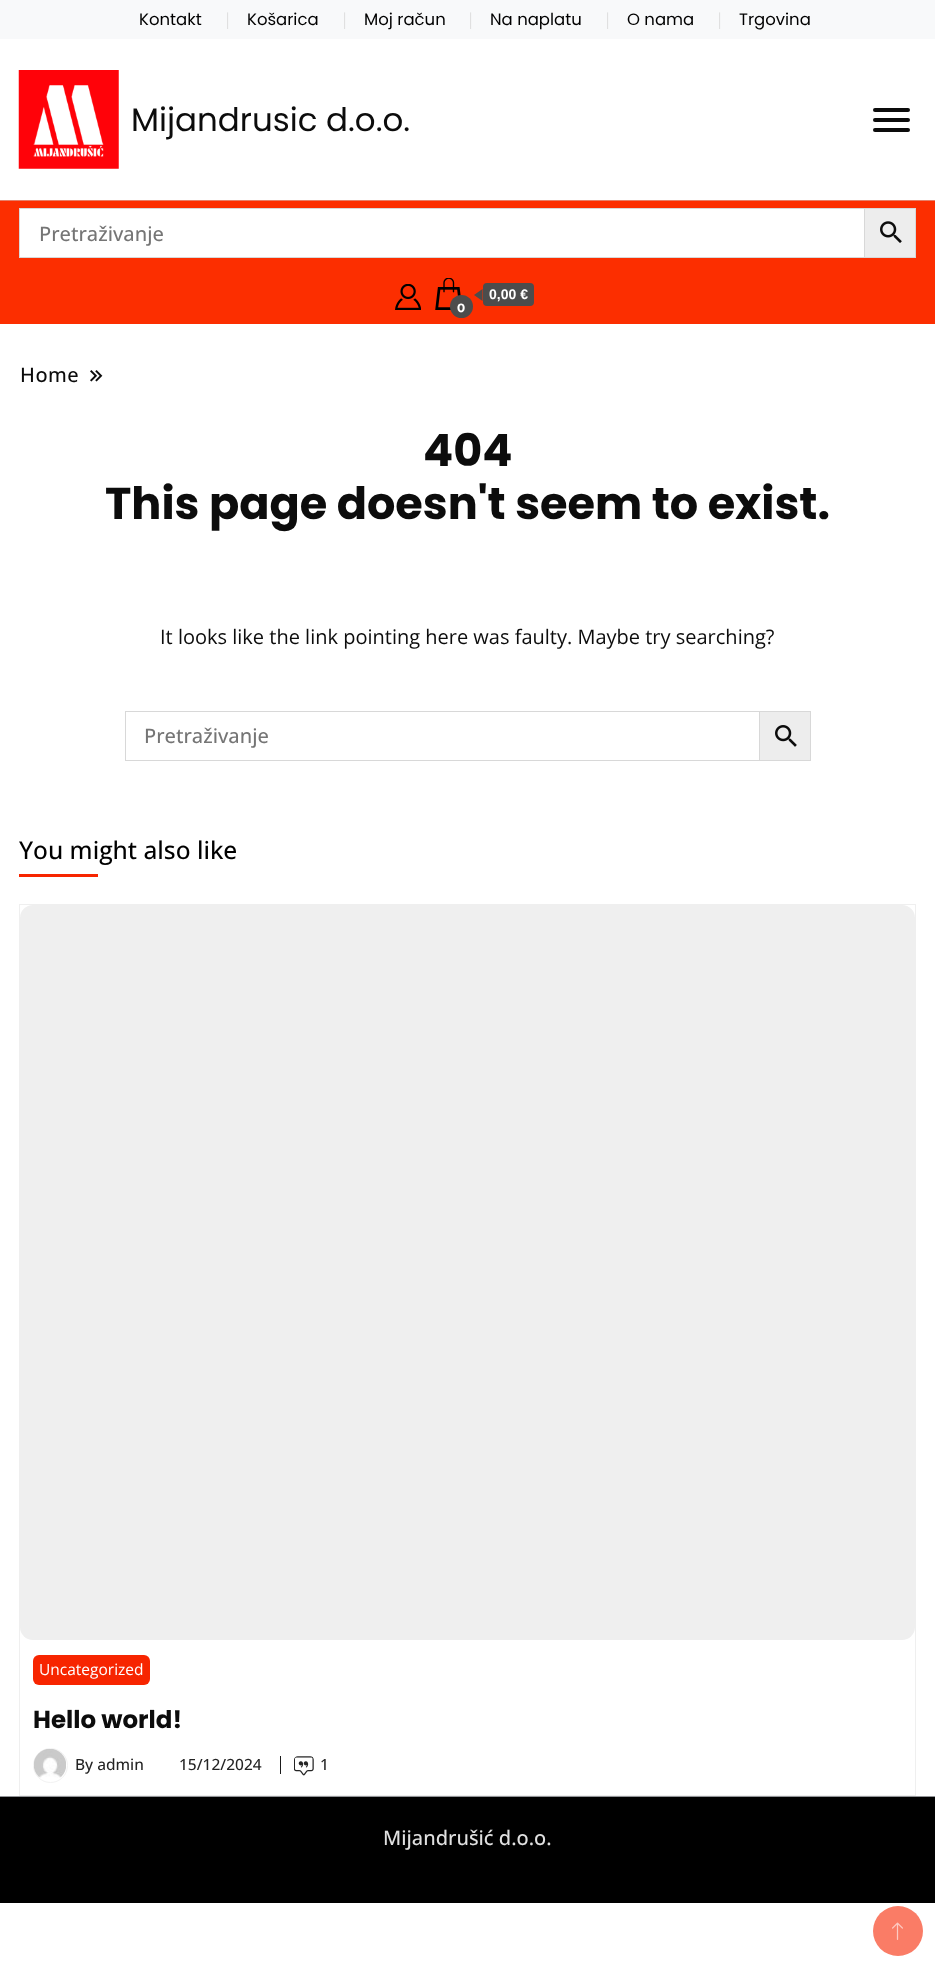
<svg xmlns="http://www.w3.org/2000/svg" xmlns:xlink="http://www.w3.org/1999/xlink" width="935" height="1987" viewBox="0 0 935 1987">
<style>
.cls-1{font:16.5px Poppins;fill:#000000}
.cls-2{font:16.5px Open Sans;fill:#e0e0e0}
.cls-3{font:32.5px Poppins;fill:#0c0c0c}
.cls-4{font:500 20px Open Sans;fill:#757575}
.cls-5{font:bold 14px Liberation Sans;fill:#ffffff}
.cls-6{font:bold 12px Montserrat;fill:#ffffff}
.cls-7{font:500 20px Open Sans;letter-spacing:0.5px;fill:#0c0c0c}
.cls-8{font:bold 44.6px Poppins;fill:#0c0c0c}
.cls-9{font:20px Open Sans;fill:#0c0c0c}
.cls-10{font:500 24.5px Open Sans;fill:#000000}
.cls-11{font:15.5px Open Sans;fill:#ffffff}
.cls-12{font:bold 24.5px Poppins;fill:#0c0c0c}
.cls-13{font:500 15.5px Open Sans;fill:#242424}
.cls-14{font:500 20px Open Sans;fill:#e0e0e0}
</style>
<rect width="100%" height="100%" fill="#ffffff"/>
<rect fill="#f8f9fa" x="0" y="0" width="935" height="39"/>
<image xlink:href="image0.png" x="18" y="70" width="101" height="99"/>
<rect fill="#0c0c0c" x="873" y="108" width="37" height="4" rx="2"/>
<rect fill="#0c0c0c" x="873" y="118" width="37" height="4" rx="2"/>
<rect fill="#0c0c0c" x="873" y="128" width="37" height="4" rx="2"/>
<rect fill="#fc2e00" x="0" y="201" width="935" height="123"/>
<rect fill="#e6806a" x="0" y="200" width="935" height="1"/>
<rect fill="#ffffff" x="20" y="209" width="844" height="48"/>
<rect fill="#ededed" stroke="#d8d8d8" x="864.5" y="208.5" width="51" height="49"/>
<rect fill="none" stroke="#d8d8d8" x="19.5" y="208.5" width="845" height="49"/>
<image xlink:href="image1.png" x="880" y="221" width="22" height="22"/>
<image xlink:href="image2.png" x="395" y="284" width="26" height="26"/>
<image xlink:href="image3.png" x="435" y="278" width="26" height="32"/>
<rect fill="#4c4c4c" x="483" y="283" width="51" height="23" rx="4"/>
<path fill="#4c4c4c" d="M482.5 289V301L474 295Z"/>
<circle fill="#4c4c4c" cx="461.5" cy="306.5" r="11.5"/>
<image xlink:href="image4.png" x="90" y="370" width="13" height="12"/>
<rect fill="#ededed" stroke="#d8d8d8" x="759.5" y="711.5" width="51" height="49"/>
<rect fill="none" stroke="#d8d8d8" x="125.5" y="711.5" width="634" height="49"/>
<image xlink:href="image5.png" x="775" y="725" width="22" height="22"/>
<rect fill="#f72500" x="19" y="874" width="79" height="3"/>
<rect fill="none" stroke="#efefef" x="19.5" y="904.5" width="896" height="891"/>
<rect fill="#efefef" x="20" y="905" width="895" height="735" rx="13"/>
<rect fill="#f72500" x="33" y="1655" width="117" height="30" rx="6"/>
<circle fill="none" stroke="#f2f2f2" cx="50.5" cy="1765.5" r="17"/>
<image xlink:href="image6.png" x="34" y="1749" width="32" height="29"/>
<rect fill="#1a1a1a" x="280" y="1756" width="1" height="18"/>
<image xlink:href="image7.png" x="294" y="1756" width="20" height="20"/>
<rect fill="#000000" x="0" y="1797" width="935" height="106"/>
<rect fill="#929497" x="0" y="1796" width="935" height="1"/>
<circle fill="#fa7c66" cx="898" cy="1931" r="25"/>
<image xlink:href="image8.png" x="892" y="1922" width="11" height="18"/>
<text class="cls-1" x="139" y="25">Kontakt</text>
<text class="cls-2" x="223" y="25">|</text>
<text class="cls-1" x="247" y="25">Košarica</text>
<text class="cls-2" x="340" y="25">|</text>
<text class="cls-1" x="364" y="25">Moj račun</text>
<text class="cls-2" x="466" y="25">|</text>
<text class="cls-1" x="490" y="25">Na naplatu</text>
<text class="cls-2" x="603" y="25">|</text>
<text class="cls-1" x="627" y="25">O nama</text>
<text class="cls-2" x="715" y="25">|</text>
<text class="cls-1" x="739" y="25">Trgovina</text>
<text class="cls-3" x="131" y="131">Mijandrusic d.o.o.</text>
<text class="cls-4" x="39" y="241">Pretraživanje</text>
<text class="cls-5" x="489" y="299">0,00 €</text>
<text class="cls-6" x="457" y="312">0</text>
<text class="cls-7" x="20" y="382">Home</text>
<text class="cls-8" x="423" y="466">404</text>
<text class="cls-8" x="105" y="519">This page doesn't seem to exist.</text>
<text class="cls-9" x="160" y="644">It looks like the link pointing here was faulty. Maybe try searching?</text>
<text class="cls-4" x="144" y="743">Pretraživanje</text>
<text class="cls-10" x="19" y="859">You might also like</text>
<text class="cls-11" x="39" y="1675">Uncategorized</text>
<text class="cls-12" x="33" y="1728">Hello world!</text>
<text class="cls-13" x="75" y="1770">By admin</text>
<text class="cls-13" x="179" y="1770">15/12/2024</text>
<text class="cls-13" x="320" y="1770">1</text>
<text class="cls-14" x="383" y="1845">Mijandrušić d.o.o.</text>
</svg>
